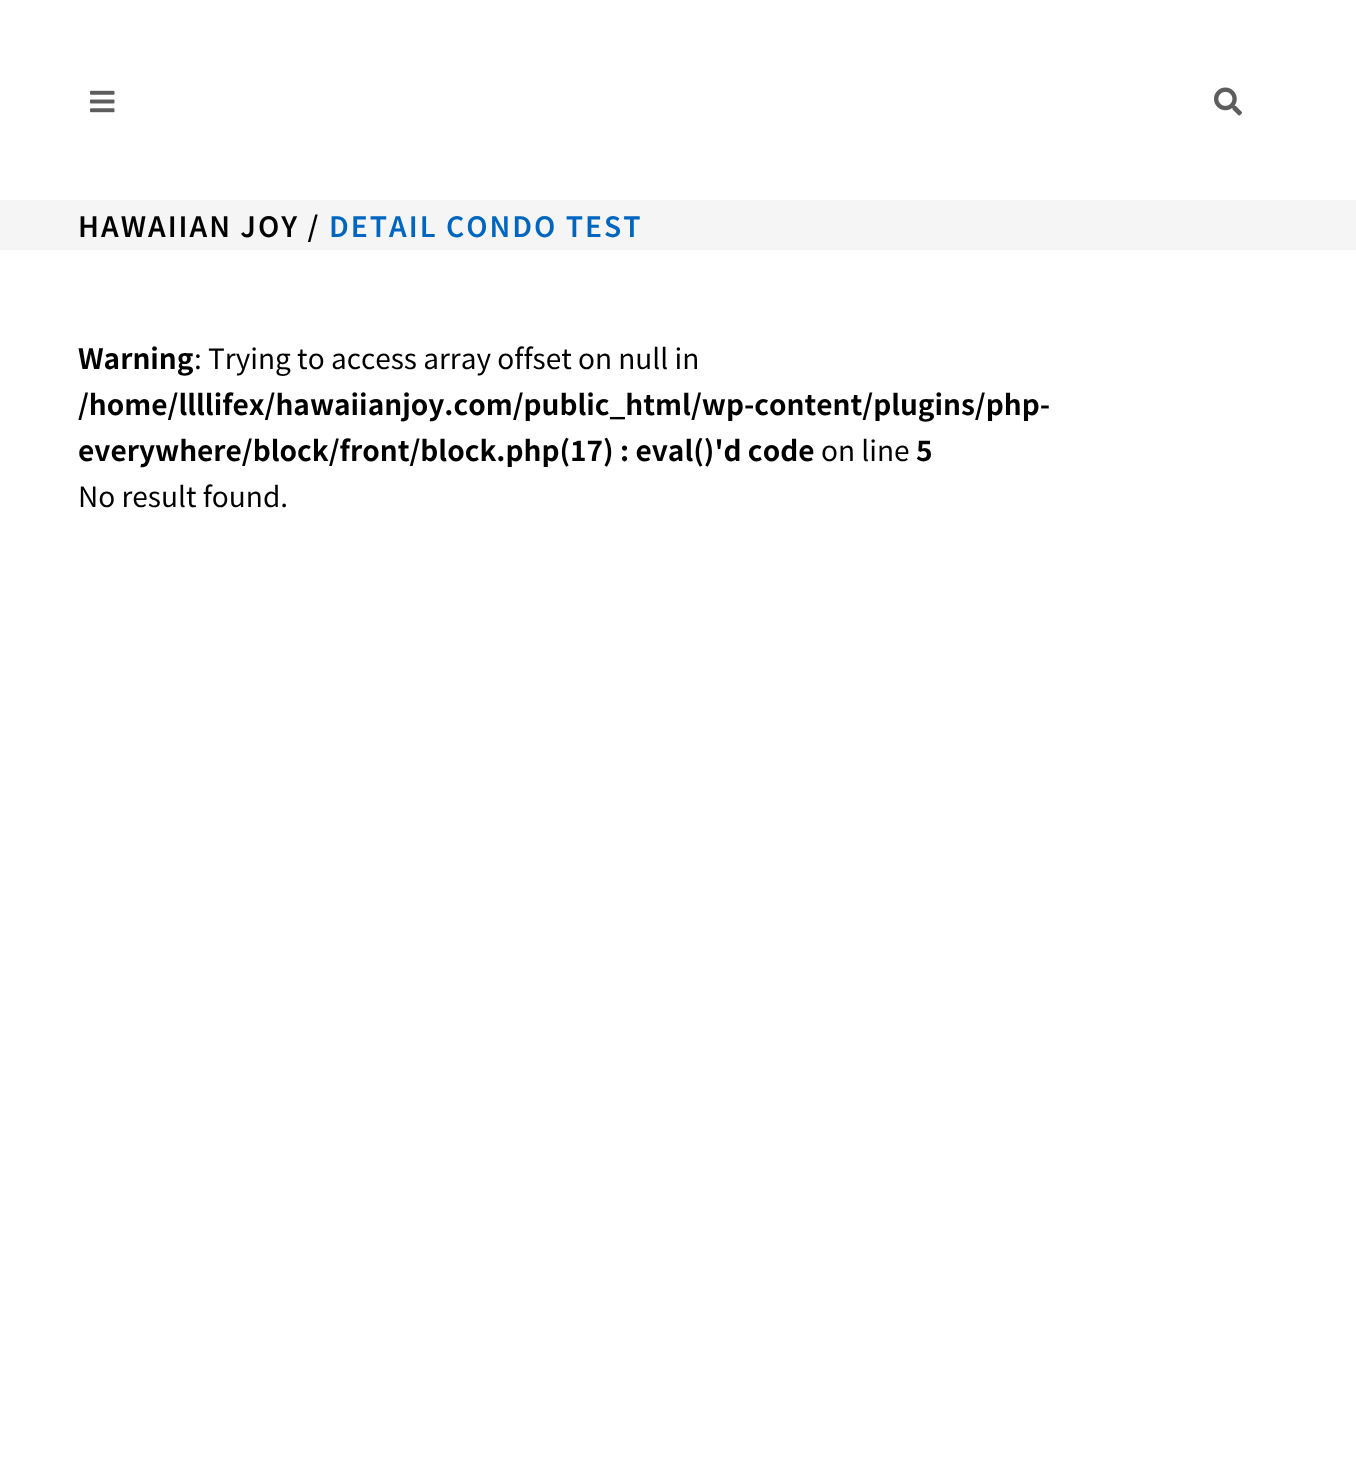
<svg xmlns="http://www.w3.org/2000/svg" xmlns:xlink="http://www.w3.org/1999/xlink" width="1356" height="1466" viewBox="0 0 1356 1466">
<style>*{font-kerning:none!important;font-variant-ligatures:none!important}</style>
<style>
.cls-1{font:600 28px Noto Sans JP;letter-spacing:2px;fill:#000000}
.cls-2{font:600 28px Noto Sans JP;letter-spacing:2px;fill:#0066bf}
.cls-3{font:bold 28px Noto Sans JP;fill:#000000}
.cls-4{font:28px Noto Sans JP;fill:#000000}
</style>
<rect width="100%" height="100%" fill="#ffffff"/>
<image xlink:href="image0.png" x="90" y="90" width="25" height="23"/>
<image xlink:href="image1.png" x="1214" y="87" width="28" height="29"/>
<rect fill="#f5f5f5" x="0" y="200" width="1356" height="50"/>
<text class="cls-1" x="78" y="237">HAWAIIAN JOY /</text>
<text class="cls-2" x="329" y="237">DETAIL CONDO TEST</text>
<text class="cls-3" x="78" y="369">Warning</text>
<text class="cls-4" x="194" y="369">: Trying to access array offset on null in</text>
<text class="cls-3"><tspan x="78" y="415">/home/llllifex/hawaiianjoy.com/public_html/wp-content/plugins/php-</tspan><tspan x="78" y="461">everywhere/block/front/block.php(17) : eval()'d code</tspan></text>
<text class="cls-4" x="821" y="461">on line</text>
<text class="cls-3" x="916" y="461">5</text>
<text class="cls-4" x="78" y="507">No result found.</text>
</svg>
